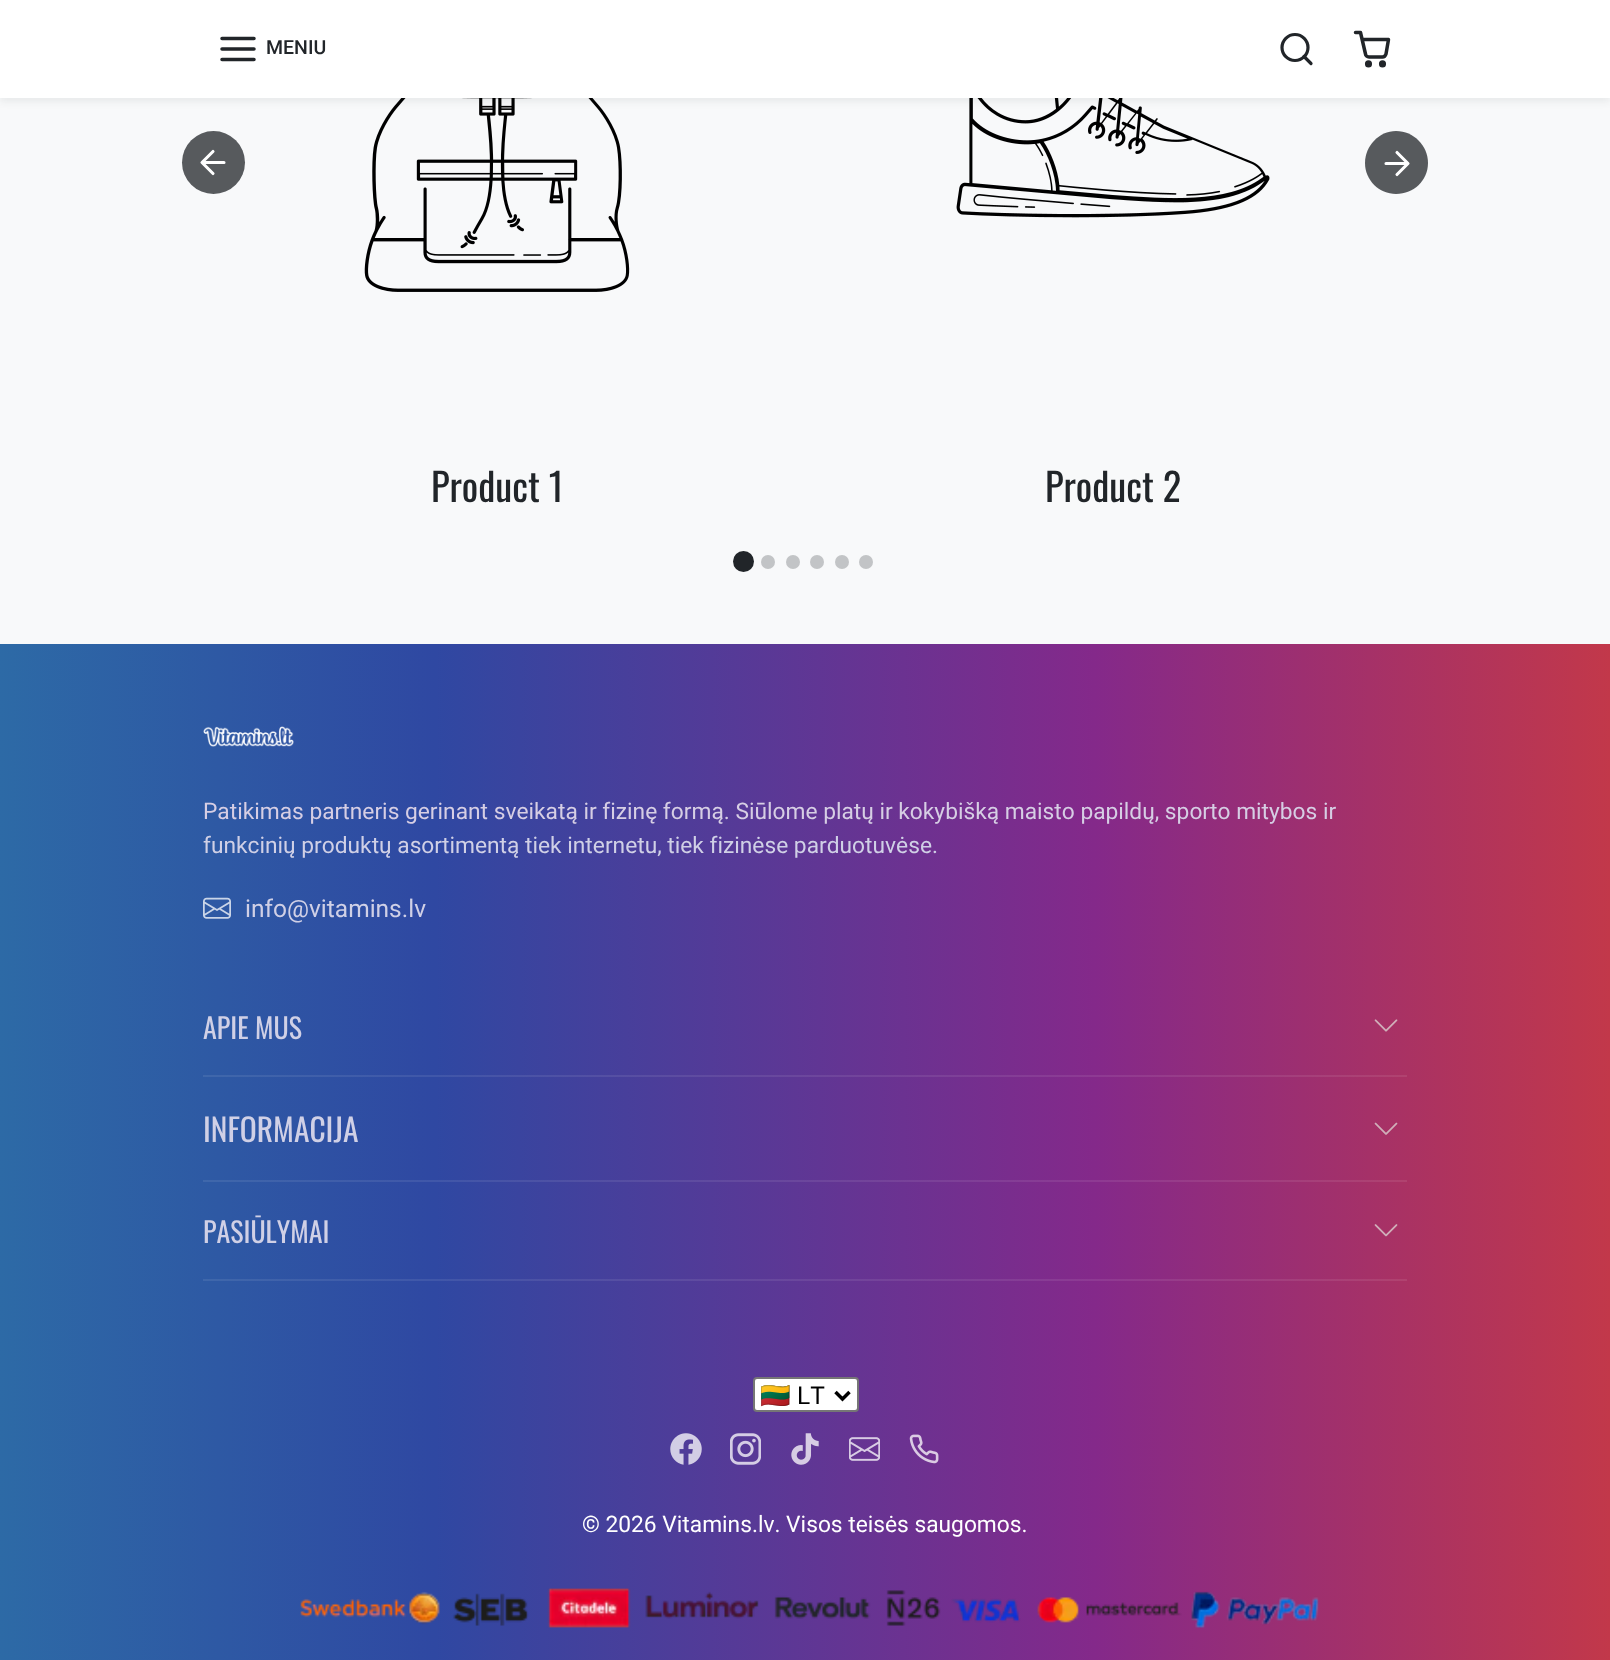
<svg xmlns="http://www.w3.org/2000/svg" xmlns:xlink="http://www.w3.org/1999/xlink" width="1610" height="1660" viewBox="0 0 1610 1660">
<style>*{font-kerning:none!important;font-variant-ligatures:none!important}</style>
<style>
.cls-1{font:500 19.5px Roboto;fill:#212529}
.cls-2{font:38.5px Oswald;fill:#212529}
.cls-3{font:22.75px Roboto;fill:#d6cee4}
.cls-4{font:22.75px Roboto;fill:#d0d0e6}
.cls-5{font:24.5px Roboto;fill:#d0d0e6}
.cls-6{font:28px Oswald;fill:#d0d0e6}
.cls-7{font:31.5px Oswald;fill:#d0d0e6}
.cls-8{font:24.5px Noto Color Emoji;fill:#000000}
.cls-9{font:24.5px Roboto;fill:#000000}
.cls-10{font:22.75px Roboto;fill:#ffffff}
</style>
<defs>
<linearGradient id="g1" gradientUnits="userSpaceOnUse" x1="0" y1="1152" x2="1610" y2="1152"><stop offset="0" stop-color="#2d6aa6"/><stop offset="0.27" stop-color="#2f48a2"/><stop offset="0.68" stop-color="#84298a"/><stop offset="1" stop-color="#c2384a"/></linearGradient>
<linearGradient id="g2" gradientUnits="userSpaceOnUse" x1="0" y1="1152" x2="1610" y2="1152"><stop offset="0" stop-color="#3e76ad"/><stop offset="0.27" stop-color="#4057a9"/><stop offset="0.68" stop-color="#8e3a93"/><stop offset="1" stop-color="#c74858"/></linearGradient>
<clipPath id="clip1"><rect x="761" y="1379" width="69" height="32"/></clipPath>
</defs>
<rect width="100%" height="100%" fill="#f8f9fa"/>
<image xlink:href="image0.png" x="364" y="98" width="266" height="194"/>
<image xlink:href="image1.png" x="956" y="98" width="314" height="120"/>
<rect fill="#212529" fill-opacity="0.07" filter="blur(3.5px)" x="0" y="4" width="1610" height="98"/>
<rect fill="#ffffff" x="0" y="0" width="1610" height="98"/>
<path fill="none" stroke="#212529" stroke-width="3.5" stroke-linecap="round" stroke-linejoin="round" d="M222 49H254M222 38.5H254M222 59.5H254"/>
<circle fill="none" stroke="#212529" stroke-width="3.2" cx="1295" cy="47.5" r="13"/>
<path fill="none" stroke="#212529" stroke-width="3.2" stroke-linecap="round" stroke-linejoin="round" d="M1311 63.5L1304 56.5"/>
<circle fill="none" stroke="#212529" stroke-width="3.5" cx="1368.5" cy="63.9" r="1.8"/>
<circle fill="none" stroke="#212529" stroke-width="3.5" cx="1382.5" cy="63.9" r="1.8"/>
<path fill="none" stroke="#212529" stroke-width="3.5" stroke-linecap="round" stroke-linejoin="round" d="M1355.5 32.5H1360.5L1365.5 54C1365.5 55.5 1367 57 1369 57H1382.5C1384 57 1385.5 55.5 1386 54L1388.5 39.5H1363.5"/>
<circle fill="#575a5d" cx="213.5" cy="162.5" r="31.5"/>
<path fill="none" stroke="#ffffff" stroke-width="3.1" stroke-linecap="round" stroke-linejoin="round" d="M224 162.5H203.5M213 151.5L202 162.5L213 173.5"/>
<path fill="#575a5d" d="M1396 194C1379 194 1365 180 1365 163C1365 146 1379 131 1396 131C1414 131 1428 146 1428 163C1428 180 1414 194 1396 194Z"/>
<path fill="none" stroke="#ffffff" stroke-width="3.1" stroke-linecap="round" stroke-linejoin="round" d="M1386 163.5H1406.5M1397 174.5L1408 163.5L1397 152.5"/>
<circle fill="#212529" cx="743.5" cy="561.5" r="10.5"/>
<circle fill="#c2c4c6" cx="768" cy="562" r="7"/>
<circle fill="#c2c4c6" cx="793" cy="562" r="7"/>
<circle fill="#c2c4c6" cx="817" cy="562" r="7"/>
<circle fill="#c2c4c6" cx="842" cy="562" r="7"/>
<circle fill="#c2c4c6" cx="866" cy="562" r="7"/>
<rect fill="url(#g1)" x="0" y="644" width="1610" height="1016"/>
<rect fill="url(#g2)" x="203" y="1279" width="1204" height="2"/>
<rect fill="url(#g2)" x="203" y="1180" width="1204" height="2"/>
<rect fill="url(#g2)" x="203" y="1075" width="1204" height="2"/>
<image xlink:href="image2.png" x="203" y="726" width="91" height="21"/>
<image xlink:href="image3.png" x="203" y="897" width="28" height="22"/>
<image xlink:href="image4.png" x="1374" y="1019" width="24" height="13"/>
<image xlink:href="image5.png" x="1374" y="1122" width="24" height="13"/>
<image xlink:href="image6.png" x="1374" y="1224" width="24" height="13"/>
<rect fill="#ffffff" stroke="#767676" stroke-width="2" x="754" y="1378" width="104" height="33" rx="3"/>
<path fill="none" stroke="#000000" stroke-width="3.5" d="M835.5 1392L842.5 1399L849.5 1392"/>
<image xlink:href="image7.png" x="670" y="1433" width="32" height="32"/>
<image xlink:href="image8.png" x="730" y="1433" width="31" height="32"/>
<image xlink:href="image9.png" x="791" y="1433" width="28" height="32"/>
<image xlink:href="image10.png" x="849" y="1437" width="31" height="24"/>
<image xlink:href="image11.png" x="909" y="1434" width="30" height="30"/>
<image xlink:href="image12.png" x="300" y="1588" width="1019" height="40"/>
<text class="cls-1" x="266" y="54">MENIU</text>
<text class="cls-2" x="431" y="502">Product 1</text>
<text class="cls-2" x="1045" y="502">Product 2</text>
<text class="cls-3" x="203" y="819">Patikimas partneris gerinant sveikatą ir fizinę formą. Siūlome platų ir kokybišką maisto papildų, sporto mitybos ir</text>
<text class="cls-4" x="203" y="853">funkcinių produktų asortimentą tiek internetu, tiek fizinėse parduotuvėse.</text>
<text class="cls-5" x="245" y="917">info@vitamins.lv</text>
<text class="cls-6" x="203" y="1039">APIE MUS</text>
<text class="cls-7" x="203" y="1142">INFORMACIJA</text>
<text class="cls-6" x="203" y="1243">PASIŪLYMAI</text>
<g clip-path="url(#clip1)">
<text class="cls-8" x="760" y="1404">🇱🇹</text>
</g>
<text class="cls-9" x="797" y="1404">LT</text>
<text class="cls-10" x="582" y="1532">© 2026 Vitamins.lv. Visos teisės saugomos.</text>
</svg>
